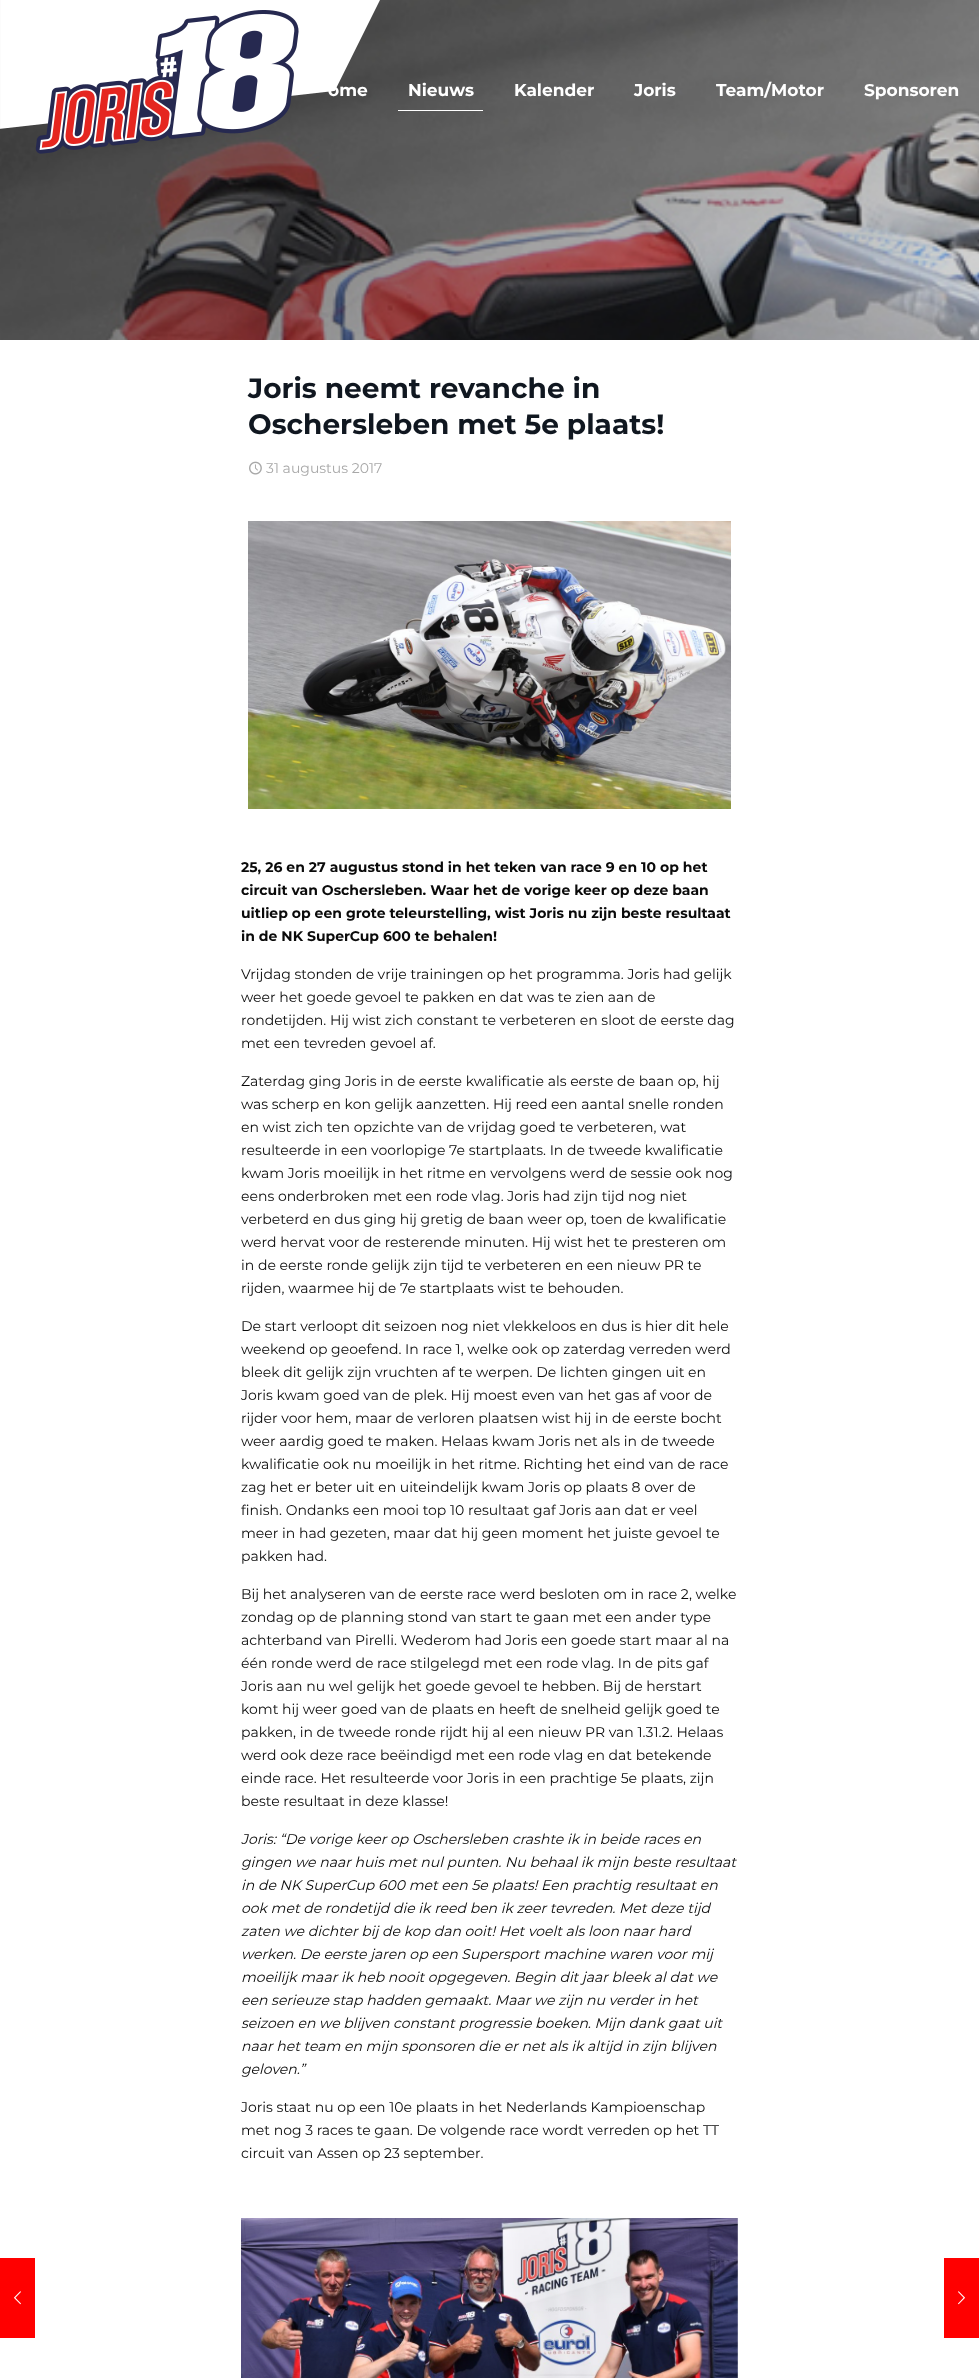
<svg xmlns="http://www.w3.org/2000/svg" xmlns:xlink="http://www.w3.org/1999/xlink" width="979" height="2378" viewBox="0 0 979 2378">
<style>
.cls-1{font:bold 17px Montserrat;fill:#ffffff}
.cls-2{font:bold 28px Montserrat;fill:#101720}
.cls-3{font:14px Montserrat;fill:#a8a8a8}
.cls-4{font:bold 14px Montserrat;fill:#0a0a0a}
.cls-5{font:14px Montserrat;fill:#0a0a0a}
.cls-6{font:italic 14px Montserrat;fill:#0a0a0a}
</style>
<rect width="100%" height="100%" fill="#ffffff"/>
<image xlink:href="image0.png" x="0" y="0" width="979" height="340"/>
<image xlink:href="image1.png" x="0" y="0" width="380" height="154"/>
<rect fill="#ffffff" x="398" y="110" width="85" height="1"/>
<image xlink:href="image2.png" x="249" y="461" width="13" height="14"/>
<image xlink:href="image3.png" x="248" y="521" width="483" height="288"/>
<image xlink:href="image4.png" x="241" y="2218" width="497" height="160"/>
<rect fill="#ff0000" x="0" y="2258" width="35" height="80"/>
<image xlink:href="image5.png" x="14" y="2291" width="7" height="14"/>
<rect fill="#ff0000" x="944" y="2258" width="35" height="80"/>
<image xlink:href="image6.png" x="958" y="2291" width="7" height="14"/>
<text class="cls-1" x="328" y="96">ome</text>
<text class="cls-1" x="408" y="96">Nieuws</text>
<text class="cls-1" x="514" y="96">Kalender</text>
<text class="cls-1" x="634" y="96">Joris</text>
<text class="cls-1" x="716" y="96">Team/Motor</text>
<text class="cls-1" x="864" y="96">Sponsoren</text>
<text class="cls-2"><tspan x="248" y="398">Joris neemt revanche in</tspan><tspan x="248" y="434">Oschersleben met 5e plaats!</tspan></text>
<text class="cls-3" x="266" y="473">31 augustus 2017</text>
<text class="cls-4"><tspan x="241" y="872">25, 26 en 27 augustus stond in het teken van race 9 en 10 op het</tspan><tspan x="241" y="895">circuit van Oschersleben. Waar het de vorige keer op deze baan</tspan><tspan x="241" y="918">uitliep op een grote teleurstelling, wist Joris nu zijn beste resultaat</tspan><tspan x="241" y="941">in de NK SuperCup 600 te behalen!</tspan></text>
<text class="cls-5"><tspan x="241" y="979">Vrijdag stonden de vrije trainingen op het programma. Joris had gelijk</tspan><tspan x="241" y="1002">weer het goede gevoel te pakken en dat was te zien aan de</tspan><tspan x="241" y="1025">rondetijden. Hij wist zich constant te verbeteren en sloot de eerste dag</tspan><tspan x="241" y="1048">met een tevreden gevoel af.</tspan></text>
<text class="cls-5"><tspan x="241" y="1086">Zaterdag ging Joris in de eerste kwalificatie als eerste de baan op, hij</tspan><tspan x="241" y="1109">was scherp en kon gelijk aanzetten. Hij reed een aantal snelle ronden</tspan><tspan x="241" y="1132">en wist zich ten opzichte van de vrijdag goed te verbeteren, wat</tspan><tspan x="241" y="1155">resulteerde in een voorlopige 7e startplaats. In de tweede kwalificatie</tspan><tspan x="241" y="1178">kwam Joris moeilijk in het ritme en vervolgens werd de sessie ook nog</tspan><tspan x="241" y="1201">eens onderbroken met een rode vlag. Joris had zijn tijd nog niet</tspan><tspan x="241" y="1224">verbeterd en dus ging hij gretig de baan weer op, toen de kwalificatie</tspan><tspan x="241" y="1247">werd hervat voor de resterende minuten. Hij wist het te presteren om</tspan><tspan x="241" y="1270">in de eerste ronde gelijk zijn tijd te verbeteren en een nieuw PR te</tspan><tspan x="241" y="1293">rijden, waarmee hij de 7e startplaats wist te behouden.</tspan></text>
<text class="cls-5"><tspan x="241" y="1331">De start verloopt dit seizoen nog niet vlekkeloos en dus is hier dit hele</tspan><tspan x="241" y="1354">weekend op geoefend. In race 1, welke ook op zaterdag verreden werd</tspan><tspan x="241" y="1377">bleek dit gelijk zijn vruchten af te werpen. De lichten gingen uit en</tspan><tspan x="241" y="1400">Joris kwam goed van de plek. Hij moest even van het gas af voor de</tspan><tspan x="241" y="1423">rijder voor hem, maar de verloren plaatsen wist hij in de eerste bocht</tspan><tspan x="241" y="1446">weer aardig goed te maken. Helaas kwam Joris net als in de tweede</tspan><tspan x="241" y="1469">kwalificatie ook nu moeilijk in het ritme. Richting het eind van de race</tspan><tspan x="241" y="1492">zag het er beter uit en uiteindelijk kwam Joris op plaats 8 over de</tspan><tspan x="241" y="1515">finish. Ondanks een mooi top 10 resultaat gaf Joris aan dat er veel</tspan><tspan x="241" y="1538">meer in had gezeten, maar dat hij geen moment het juiste gevoel te</tspan><tspan x="241" y="1561">pakken had.</tspan></text>
<text class="cls-5"><tspan x="241" y="1599">Bij het analyseren van de eerste race werd besloten om in race 2, welke</tspan><tspan x="241" y="1622">zondag op de planning stond van start te gaan met een ander type</tspan><tspan x="241" y="1645">achterband van Pirelli. Wederom had Joris een goede start maar al na</tspan><tspan x="241" y="1668">één ronde werd de race stilgelegd met een rode vlag. In de pits gaf</tspan><tspan x="241" y="1691">Joris aan nu wel gelijk het goede gevoel te hebben. Bij de herstart</tspan><tspan x="241" y="1714">komt hij weer goed van de plaats en heeft de snelheid gelijk goed te</tspan><tspan x="241" y="1737">pakken, in de tweede ronde rijdt hij al een nieuw PR van 1.31.2. Helaas</tspan><tspan x="241" y="1760">werd ook deze race beëindigd met een rode vlag en dat betekende</tspan><tspan x="241" y="1783">einde race. Het resulteerde voor Joris in een prachtige 5e plaats, zijn</tspan><tspan x="241" y="1806">beste resultaat in deze klasse!</tspan></text>
<text class="cls-6"><tspan x="241" y="1844">Joris: “De vorige keer op Oschersleben crashte ik in beide races en</tspan><tspan x="241" y="1867">gingen we naar huis met nul punten. Nu behaal ik mijn beste resultaat</tspan><tspan x="241" y="1890">in de NK SuperCup 600 met een 5e plaats! Een prachtig resultaat en</tspan><tspan x="241" y="1913">ook met de rondetijd die ik reed ben ik zeer tevreden. Met deze tijd</tspan><tspan x="241" y="1936">zaten we dichter bij de kop dan ooit! Het voelt als loon naar hard</tspan><tspan x="241" y="1959">werken. De eerste jaren op een Supersport machine waren voor mij</tspan><tspan x="241" y="1982">moeilijk maar ik heb nooit opgegeven. Begin dit jaar bleek al dat we</tspan><tspan x="241" y="2005">een serieuze stap hadden gemaakt. Maar we zijn nu verder in het</tspan><tspan x="241" y="2028">seizoen en we blijven constant progressie boeken. Mijn dank gaat uit</tspan><tspan x="241" y="2051">naar het team en mijn sponsoren die er net als ik altijd in zijn blijven</tspan><tspan x="241" y="2074">geloven.”</tspan></text>
<text class="cls-5"><tspan x="241" y="2112">Joris staat nu op een 10e plaats in het Nederlands Kampioenschap</tspan><tspan x="241" y="2135">met nog 3 races te gaan. De volgende race wordt verreden op het TT</tspan><tspan x="241" y="2158">circuit van Assen op 23 september.</tspan></text>
</svg>
